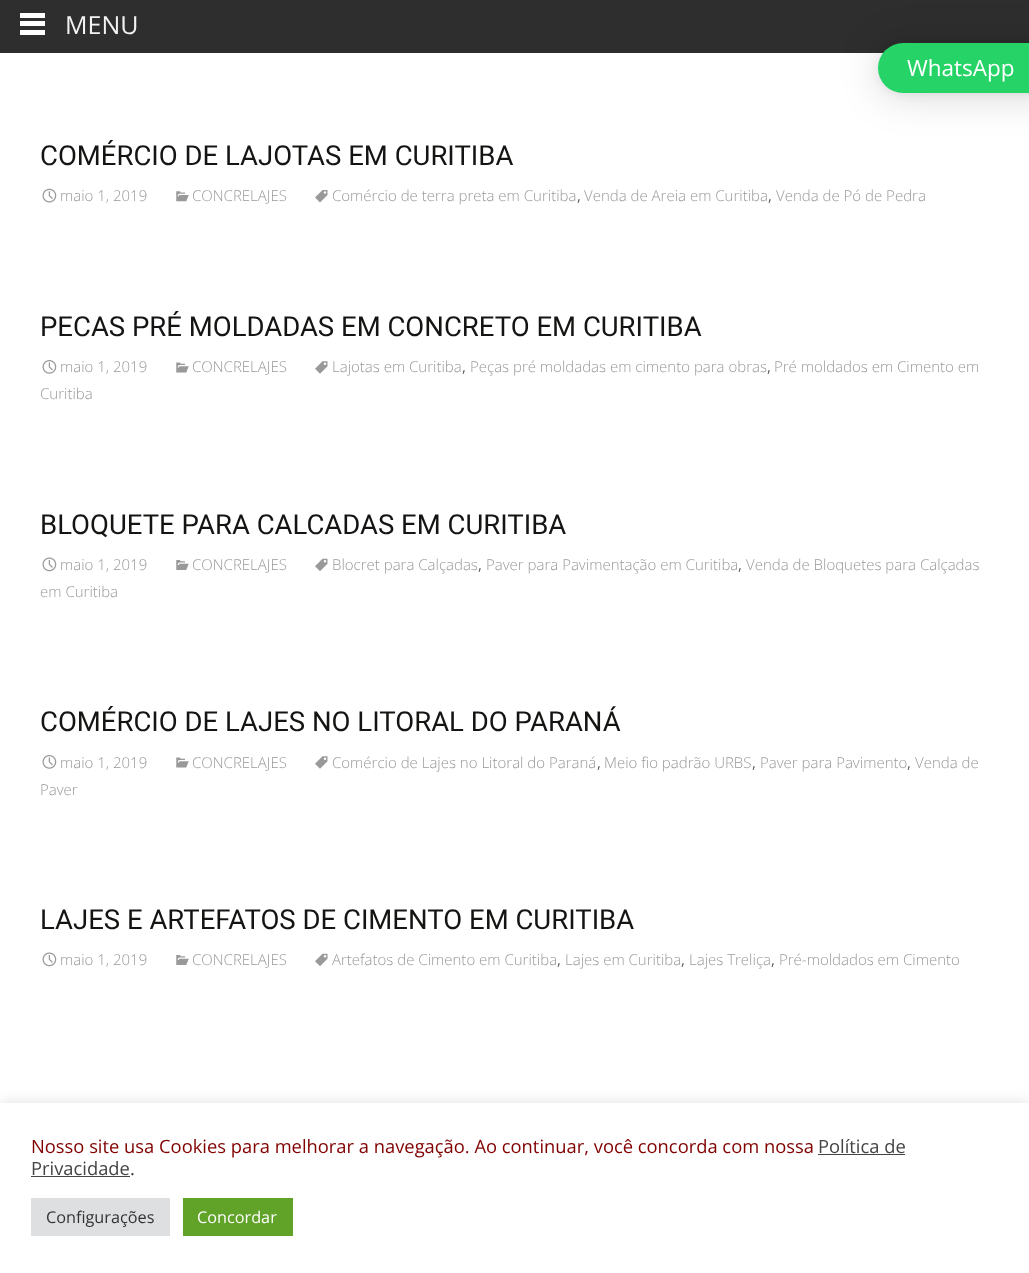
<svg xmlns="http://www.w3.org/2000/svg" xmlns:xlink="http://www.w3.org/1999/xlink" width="1029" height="1273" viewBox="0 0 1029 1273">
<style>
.cls-1{font:25px Open Sans;fill:#f2f2f2}
.cls-2{font:22.5px Open Sans;fill:#ffffff}
.cls-3{font:27.5px Roboto;fill:#141412}
.cls-4{font:300 15px Open Sans;fill:#999999}
.cls-5{font:15px Open Sans;fill:#575757}
.cls-6{font:18.35px Open Sans;fill:#800000}
.cls-7{font:18.35px Open Sans;fill:#444444}
.cls-8{font:18.35px Open Sans;fill:#333333}
.cls-9{font:16.25px Open Sans;fill:#333333}
.cls-10{font:16.25px Open Sans;fill:#ffffff}
</style>
<rect width="100%" height="100%" fill="#ffffff"/>
<rect fill="#2e2e2e" x="0" y="0" width="1029" height="53"/>
<rect fill="#ffffff" x="20" y="13" width="25" height="5"/>
<rect fill="#ffffff" x="20" y="21" width="25" height="5"/>
<rect fill="#ffffff" x="20" y="30" width="25" height="5"/>
<rect fill="#000000" fill-opacity="0.16" filter="blur(20px)" x="878" y="45" width="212" height="50" rx="25"/>
<rect fill="#000000" fill-opacity="0.06" filter="blur(4px)" x="878" y="44" width="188" height="50" rx="25"/>
<rect fill="#25d366" x="878" y="43" width="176" height="50" rx="25"/>
<image xlink:href="image0.png" x="42" y="188" width="15" height="15"/>
<image xlink:href="image1.png" x="176" y="191" width="13" height="11"/>
<image xlink:href="image2.png" x="315" y="190" width="13" height="13"/>
<image xlink:href="image3.png" x="315" y="361" width="13" height="13"/>
<image xlink:href="image4.png" x="42" y="360" width="15" height="14"/>
<image xlink:href="image5.png" x="176" y="362" width="13" height="11"/>
<image xlink:href="image6.png" x="315" y="558" width="13" height="13"/>
<image xlink:href="image7.png" x="42" y="557" width="15" height="15"/>
<image xlink:href="image8.png" x="176" y="560" width="13" height="10"/>
<image xlink:href="image3.png" x="315" y="756" width="13" height="13"/>
<image xlink:href="image4.png" x="42" y="755" width="15" height="14"/>
<image xlink:href="image5.png" x="176" y="757" width="13" height="11"/>
<image xlink:href="image7.png" x="42" y="952" width="15" height="15"/>
<image xlink:href="image8.png" x="176" y="955" width="13" height="10"/>
<image xlink:href="image6.png" x="315" y="953" width="13" height="13"/>
<rect fill="#acabab" fill-opacity="0.3" filter="blur(6px)" x="0" y="1101" width="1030" height="172"/>
<rect fill="#ffffff" x="0" y="1103" width="1029" height="170"/>
<rect fill="#444444" x="818" y="1154" width="87" height="1"/>
<rect fill="#444444" x="31" y="1176" width="99" height="1"/>
<rect fill="#dedfe0" x="31" y="1198" width="139" height="38"/>
<rect fill="#61a229" x="183" y="1198" width="110" height="38"/>
<text class="cls-1" x="65" y="34">MENU</text>
<text class="cls-2" x="907" y="76">WhatsApp</text>
<text class="cls-3" x="40" y="165">COMÉRCIO DE LAJOTAS EM CURITIBA</text>
<text class="cls-4" x="60" y="201">maio 1, 2019</text>
<text class="cls-4" x="192" y="201">CONCRELAJES</text>
<text class="cls-4" x="332" y="201">Comércio de terra preta em Curitiba</text>
<text class="cls-5" x="577" y="201">,</text>
<text class="cls-4" x="584" y="201">Venda de Areia em Curitiba</text>
<text class="cls-5" x="768" y="201">,</text>
<text class="cls-4" x="776" y="201">Venda de Pó de Pedra</text>
<text class="cls-3" x="40" y="336">PECAS PRÉ MOLDADAS EM CONCRETO EM CURITIBA</text>
<text class="cls-4" x="332" y="372">Lajotas em Curitiba</text>
<text class="cls-5" x="462" y="372">,</text>
<text class="cls-4" x="470" y="372">Peças pré moldadas em cimento para obras</text>
<text class="cls-5" x="767" y="372">,</text>
<text class="cls-4" x="774" y="372">Pré moldados em Cimento em</text>
<text class="cls-4" x="40" y="399">Curitiba</text>
<text class="cls-4" x="60" y="372">maio 1, 2019</text>
<text class="cls-4" x="192" y="372">CONCRELAJES</text>
<text class="cls-3" x="40" y="534">BLOQUETE PARA CALCADAS EM CURITIBA</text>
<text class="cls-4" x="332" y="570">Blocret para Calçadas</text>
<text class="cls-5" x="478" y="570">,</text>
<text class="cls-4" x="486" y="570">Paver para Pavimentação em Curitiba</text>
<text class="cls-5" x="738" y="570">,</text>
<text class="cls-4" x="746" y="570">Venda de Bloquetes para Calçadas</text>
<text class="cls-4" x="40" y="597">em Curitiba</text>
<text class="cls-4" x="60" y="570">maio 1, 2019</text>
<text class="cls-4" x="192" y="570">CONCRELAJES</text>
<text class="cls-3" x="40" y="731">COMÉRCIO DE LAJES NO LITORAL DO PARANÁ</text>
<text class="cls-4" x="332" y="768">Comércio de Lajes no Litoral do Paraná</text>
<text class="cls-5" x="597" y="768">,</text>
<text class="cls-4" x="604" y="768">Meio fio padrão URBS</text>
<text class="cls-5" x="752" y="768">,</text>
<text class="cls-4" x="760" y="768">Paver para Pavimento</text>
<text class="cls-5" x="907" y="768">,</text>
<text class="cls-4" x="915" y="768">Venda de</text>
<text class="cls-4" x="40" y="795">Paver</text>
<text class="cls-4" x="60" y="768">maio 1, 2019</text>
<text class="cls-4" x="192" y="768">CONCRELAJES</text>
<text class="cls-3" x="40" y="929">LAJES E ARTEFATOS DE CIMENTO EM CURITIBA</text>
<text class="cls-4" x="60" y="965">maio 1, 2019</text>
<text class="cls-4" x="192" y="965">CONCRELAJES</text>
<text class="cls-4" x="332" y="965">Artefatos de Cimento em Curitiba</text>
<text class="cls-5" x="557" y="965">,</text>
<text class="cls-4" x="565" y="965">Lajes em Curitiba</text>
<text class="cls-5" x="681" y="965">,</text>
<text class="cls-4" x="689" y="965">Lajes Treliça</text>
<text class="cls-5" x="771" y="965">,</text>
<text class="cls-4" x="779" y="965">Pré-moldados em Cimento</text>
<text class="cls-6" x="31" y="1153">Nosso site usa Cookies para melhorar a navegação. Ao continuar, você concorda com nossa</text>
<text class="cls-7" x="818" y="1153">Política de</text>
<text class="cls-7" x="31" y="1175">Privacidade</text>
<text class="cls-8" x="130" y="1175">.</text>
<text class="cls-9" x="46" y="1223">Configurações</text>
<text class="cls-10" x="197" y="1223">Concordar</text>
</svg>
